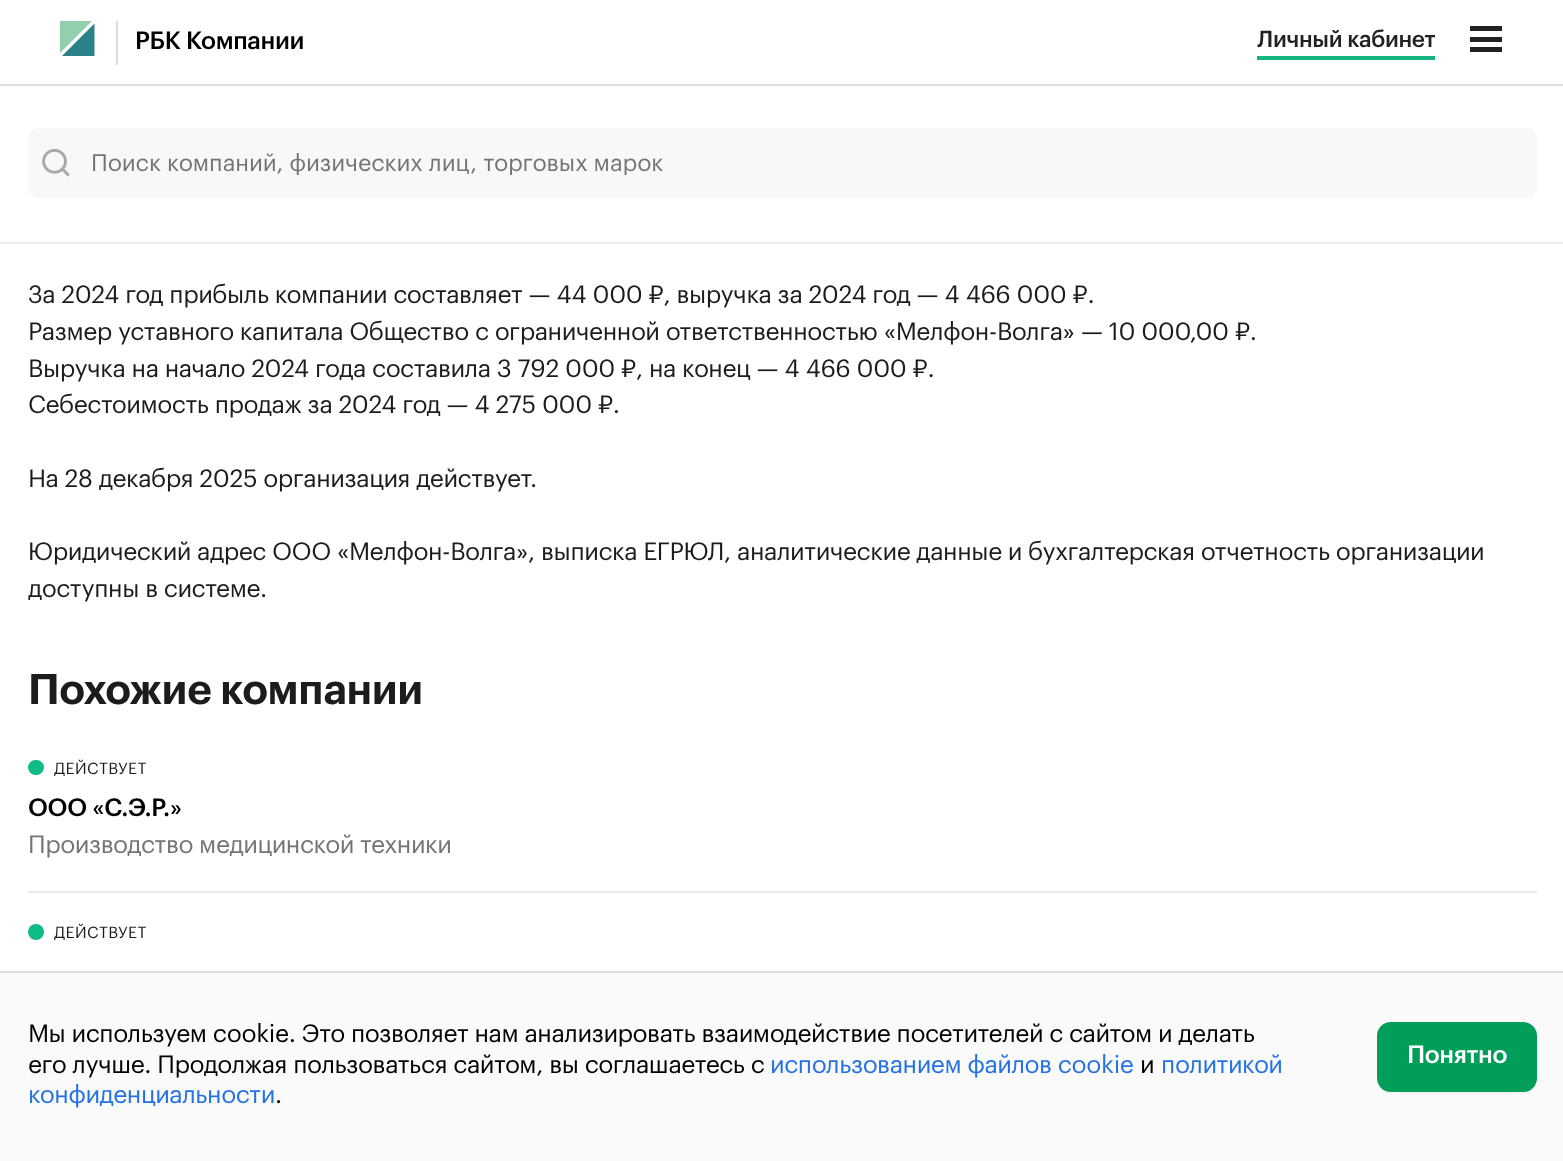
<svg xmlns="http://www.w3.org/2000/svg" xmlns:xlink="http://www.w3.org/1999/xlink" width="1563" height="1161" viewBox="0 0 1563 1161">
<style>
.cls-1{font:500 24.5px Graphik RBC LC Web;letter-spacing:-0.35px;fill:#000000}
.cls-2{font:500 22.75px Graphik RBC LC Web;letter-spacing:-0.35px;fill:#222222}
.cls-3{font:23.3px Graphik RBC LC Web;fill:#747474}
.cls-4{font:24.5px Graphik RBC LC Web;letter-spacing:-0.35px;fill:#1c1c1c}
.cls-5{font:600 42px Graphik RBC LC Web;letter-spacing:-0.35px;fill:#1c1c1c}
.cls-6{font:15.75px Graphik RBC LC Web;letter-spacing:0.5px;fill:#1c1c1c}
.cls-7{font:24.5px Graphik RBC LC Web;letter-spacing:-0.35px;fill:#747474}
.cls-8{font:24.5px Graphik RBC LC Web;letter-spacing:-0.35px;fill:#000000}
.cls-9{font:24.5px Graphik RBC LC Web;letter-spacing:-0.35px;fill:#2471e5}
.cls-10{font:500 24.5px Graphik RBC LC Web;letter-spacing:-0.35px;fill:#ffffff}
</style>
<defs>
<clipPath id="clip1"><rect x="60" y="21" width="35" height="35"/></clipPath>
<clipPath id="clip2"><rect x="91" y="152" width="1428" height="23"/></clipPath>
</defs>
<rect width="100%" height="100%" fill="#ffffff"/>
<rect fill="#dddddd" x="0" y="84" width="1563" height="2"/>
<g clip-path="url(#clip1)">
<path fill="#92cfae" fill-rule="evenodd" d="M59.5 21V53.5L92 21Z"/>
</g>
<path fill="#2a8288" fill-rule="evenodd" d="M62 56H94.5V23.5Z"/>
<rect fill="#dddddd" x="116" y="21" width="2" height="44"/>
<rect fill="#16b67f" x="1257" y="56" width="178" height="4"/>
<rect fill="#222222" x="1470" y="26" width="32" height="5"/>
<rect fill="#222222" x="1470" y="37" width="32" height="5"/>
<rect fill="#222222" x="1470" y="47" width="32" height="5"/>
<rect fill="#ebebeb" x="0" y="242" width="1563" height="2"/>
<rect fill="#f8f8f8" x="28" y="128" width="1509" height="70" rx="11"/>
<image xlink:href="image0.png" x="42" y="148" width="28" height="29"/>
<rect fill="#ebebeb" x="28" y="891" width="1509" height="2"/>
<rect fill="#11bb88" x="28" y="760" width="16" height="15" rx="7.5"/>
<circle fill="#11bb88" cx="36" cy="932" r="8"/>
<rect fill="#fafafa" x="0" y="973" width="1563" height="188"/>
<rect fill="#dddddd" x="0" y="971" width="1563" height="2"/>
<path fill="#f1f1f1" d="M1377 1035V1080C1377 1088 1383 1094 1391 1094H1523C1531 1094 1537 1088 1537 1080V1038L1536 1034V1081C1533 1097 1511 1092 1501 1092H1413C1403 1092 1381 1097 1378 1081Z"/>
<rect fill="#009e59" x="1377" y="1022" width="160" height="70" rx="14"/>
<text class="cls-1" x="135" y="49">РБК Компании</text>
<text class="cls-2" x="1257" y="47">Личный кабинет</text>
<g clip-path="url(#clip2)">
<text class="cls-3" x="91" y="171">Поиск компаний, физических лиц, торговых марок</text>
</g>
<text class="cls-4"><tspan x="28" y="303">За 2024 год прибыль компании составляет — 44 000 ₽, выручка за 2024 год — 4 466 000 ₽.</tspan><tspan x="28" y="340">Размер уставного капитала Общество с ограниченной ответственностью «Мелфон-Волга» — 10 000,00 ₽.</tspan><tspan x="28" y="377">Выручка на начало 2024 года составила 3 792 000 ₽, на конец — 4 466 000 ₽.</tspan><tspan x="28" y="413">Себестоимость продаж за 2024 год — 4 275 000 ₽.</tspan></text>
<text class="cls-4" x="28" y="487">На 28 декабря 2025 организация действует.</text>
<text class="cls-4"><tspan x="28" y="560">Юридический адрес ООО «Мелфон-Волга», выписка ЕГРЮЛ, аналитические данные и бухгалтерская отчетность организации</tspan><tspan x="28" y="597">доступны в системе.</tspan></text>
<text class="cls-5" x="28" y="704">Похожие компании</text>
<text class="cls-6" x="54" y="774">ДЕЙСТВУЕТ</text>
<text class="cls-1" x="28" y="816">ООО «С.Э.Р.»</text>
<text class="cls-7" x="28" y="853">Производство медицинской техники</text>
<text class="cls-6" x="54" y="938">ДЕЙСТВУЕТ</text>
<text class="cls-8"><tspan x="28" y="1042">Мы используем cookie. Это позволяет нам анализировать взаимодействие посетителей с сайтом и делать</tspan><tspan x="28" y="1073">его лучше. Продолжая пользоваться сайтом, вы соглашаетесь с</tspan></text>
<text class="cls-9" x="770" y="1073">использованием файлов cookie</text>
<text class="cls-8" x="1140" y="1073">и</text>
<text class="cls-9" x="1161" y="1073">политикой</text>
<text class="cls-9" x="28" y="1103">конфиденциальности</text>
<text class="cls-8" x="275" y="1103">.</text>
<text class="cls-10" x="1407" y="1063">Понятно</text>
</svg>
